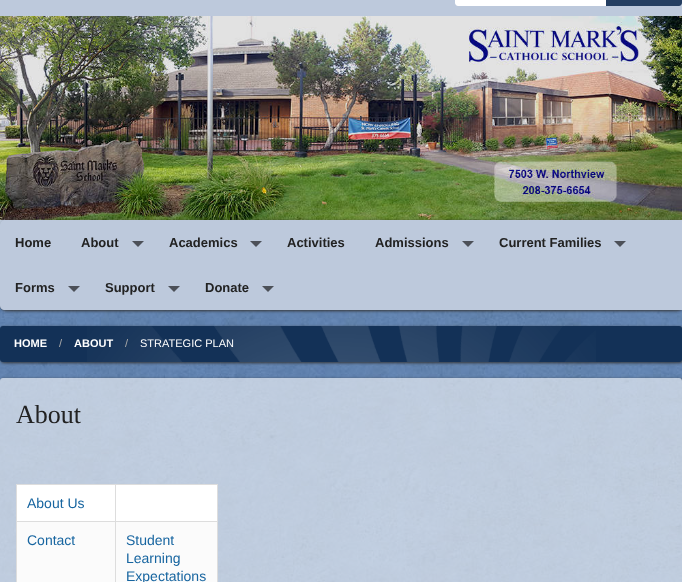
<svg xmlns="http://www.w3.org/2000/svg" xmlns:xlink="http://www.w3.org/1999/xlink" width="682" height="582" viewBox="0 0 682 582">
<style>
.cls-1{font:bold 13px Liberation Sans;fill:#222222}
.cls-2{font:bold 11px Liberation Sans;fill:#ffffff}
.cls-3{font:11px Liberation Sans;fill:#aaaaaa}
.cls-4{font:11px Liberation Sans;fill:#ffffff}
.cls-5{font:26px Liberation Serif;fill:#222222}
.cls-6{font:14px Liberation Sans;fill:#1765a0}
</style>
<defs>
<clipPath id="clip1"><path d="M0 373H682V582H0ZM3 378H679C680.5 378 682 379.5 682 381V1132C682 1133.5 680.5 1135 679 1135H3C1.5 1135 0 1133.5 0 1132V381C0 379.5 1.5 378 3 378Z" clip-rule="evenodd"/></clipPath>
</defs>
<rect width="100%" height="100%" fill="#ffffff"/>
<image xlink:href="image0.png" x="0" y="220" width="682" height="362"/>
<rect fill="#bdc9dc" x="0" y="0" width="682" height="16"/>
<path fill="#ffffff" d="M458-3H606V6H458C456.5 6 455 4.5 455 3V0C455-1.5 456.5-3 458-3Z"/>
<path fill="#243e61" d="M606-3H679C680.5-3 682-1.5 682 0V3C682 4.5 680.5 6 679 6H606Z"/>
<image xlink:href="image1.png" x="0" y="16" width="682" height="204"/>
<path fill="#ffffff" fill-opacity="0.6" d="M0 220H682V305C682 308 680 310 677 310H5C2 310 0 308 0 305Z"/>
<rect fill="#333333" filter="blur(1.5px)" x="1" y="221" width="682" height="90" rx="5"/>
<path fill="#bdc9dc" d="M5 220H682V310H5C2 310 0 308 0 305V225C0 222 2 220 5 220Z"/>
<path fill="#4c5058" d="M132 241H144L138 247Z"/>
<path fill="#4c5058" d="M250 241H262L256 247Z"/>
<path fill="#4c5058" d="M462 241H474L468 247Z"/>
<path fill="#4c5058" d="M614 241H626L620 247Z"/>
<path fill="#4c5058" d="M68 286H80L74 292Z"/>
<path fill="#4c5058" d="M168 286H180L174 292Z"/>
<path fill="#4c5058" d="M262 286H274L268 292Z"/>
<rect fill="#333333" filter="blur(1.5px)" x="1" y="327" width="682" height="36" rx="3"/>
<rect fill="#133157" x="0" y="326" width="682" height="36" rx="3"/>
<image xlink:href="image2.png" x="87" y="326" width="509" height="36"/>
<g clip-path="url(#clip1)">
<rect fill="#333333" filter="blur(1.5px)" x="1" y="379" width="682" height="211" rx="3"/>
</g>
<rect fill="#ffffff" fill-opacity="0.6" x="0" y="378" width="682" height="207" rx="3"/>
<rect fill="#ffffff" x="17" y="485" width="200" height="36"/>
<rect fill="#dddddd" x="16" y="484" width="202" height="1"/>
<rect fill="#dddddd" x="217" y="484" width="1" height="98"/>
<rect fill="#dddddd" x="16" y="484" width="1" height="98"/>
<rect fill="#dddddd" x="115" y="521" width="103" height="1"/>
<rect fill="#fbfbfb" x="17" y="522" width="200" height="60"/>
<rect fill="#dddddd" x="115" y="521" width="1" height="61"/>
<rect fill="#dddddd" x="16" y="521" width="100" height="1"/>
<rect fill="#dddddd" x="115" y="484" width="1" height="38"/>
<text class="cls-1" x="15" y="247">Home</text>
<text class="cls-1" x="81" y="247">About</text>
<text class="cls-1" x="169" y="247">Academics</text>
<text class="cls-1" x="287" y="247">Activities</text>
<text class="cls-1" x="375" y="247">Admissions</text>
<text class="cls-1" x="499" y="247">Current Families</text>
<text class="cls-1" x="15" y="292">Forms</text>
<text class="cls-1" x="105" y="292">Support</text>
<text class="cls-1" x="205" y="292">Donate</text>
<text class="cls-2" x="14" y="347">HOME</text>
<text class="cls-3" x="59" y="347">/</text>
<text class="cls-2" x="74" y="347">ABOUT</text>
<text class="cls-3" x="125" y="347">/</text>
<text class="cls-4" x="140" y="347">STRATEGIC PLAN</text>
<text class="cls-5" x="16" y="423">About</text>
<text class="cls-6" x="27" y="508">About Us</text>
<text class="cls-6" x="27" y="545">Contact</text>
<text class="cls-6"><tspan x="126" y="545">Student</tspan><tspan x="126" y="563">Learning</tspan><tspan x="126" y="581">Expectations</tspan></text>
</svg>
